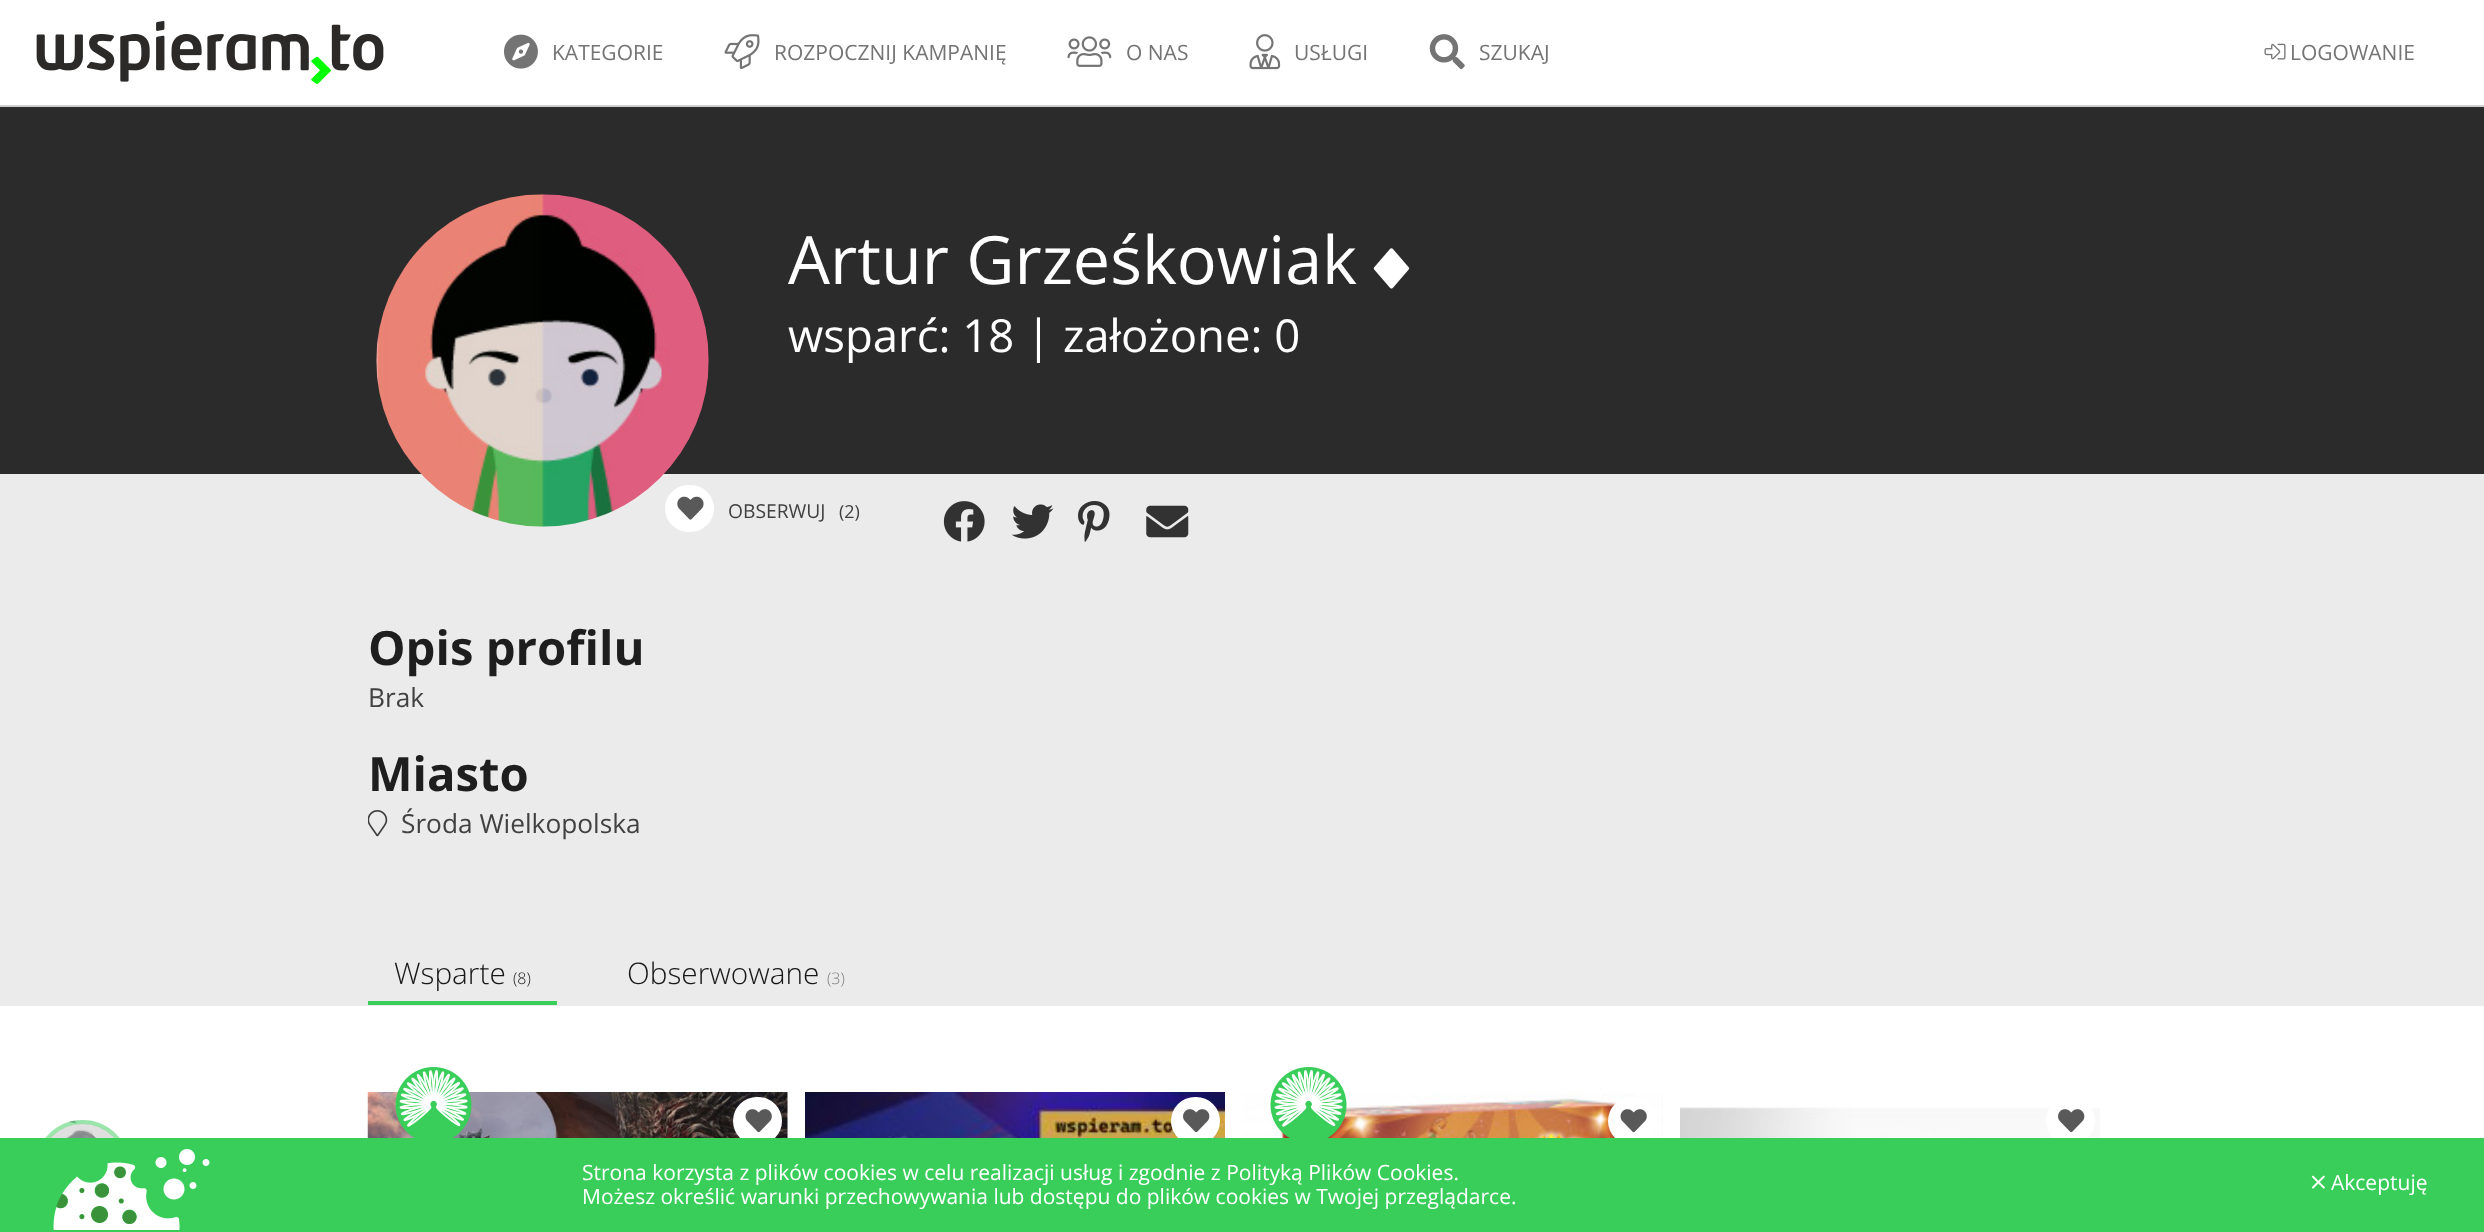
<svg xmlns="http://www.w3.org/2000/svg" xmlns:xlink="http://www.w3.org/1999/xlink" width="2484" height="1232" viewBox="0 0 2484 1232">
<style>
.cls-1{font:21px Open Sans;fill:#747474}
.cls-2{font:66.5px Open Sans;fill:#ffffff}
.cls-3{font:45.5px Open Sans;fill:#ffffff}
.cls-4{font:19.25px Open Sans;fill:#414141}
.cls-5{font:18px Open Sans;fill:#414141}
.cls-6{font:bold 47.25px Open Sans;fill:#1e1e1e}
.cls-7{font:26.25px Open Sans;fill:#414141}
.cls-8{font:300 29.75px Open Sans;fill:#181818}
.cls-9{font:300 16px Open Sans;fill:#181818}
.cls-10{font:300 16px Open Sans;fill:#808080}
.cls-11{font:21px Open Sans;fill:#ffffff}
</style>
<rect width="100%" height="100%" fill="#ffffff"/>
<rect fill="#cfcfcf" x="0" y="105" width="2484" height="2"/>
<image xlink:href="image0.png" x="36" y="21" width="348" height="63"/>
<image xlink:href="image1.png" x="504" y="34" width="34" height="35"/>
<image xlink:href="image2.png" x="724" y="34" width="36" height="36"/>
<image xlink:href="image3.png" x="1067" y="36" width="45" height="31"/>
<image xlink:href="image4.png" x="1249" y="34" width="32" height="36"/>
<image xlink:href="image5.png" x="1429" y="34" width="36" height="36"/>
<image xlink:href="image6.png" x="2264" y="43" width="22" height="17"/>
<rect fill="#2b2b2b" x="0" y="107" width="2484" height="367"/>
<rect fill="#ebebeb" x="0" y="474" width="2484" height="532"/>
<image xlink:href="image7.png" x="376" y="194" width="333" height="333"/>
<image xlink:href="image8.png" x="1373" y="248" width="37" height="41"/>
<rect fill="#ffffff" x="665" y="485" width="49" height="47" rx="23.5"/>
<image xlink:href="image9.png" x="677" y="496" width="27" height="24"/>
<image xlink:href="image10.png" x="943" y="501" width="42" height="41"/>
<image xlink:href="image11.png" x="1011" y="504" width="43" height="35"/>
<image xlink:href="image12.png" x="1078" y="501" width="32" height="41"/>
<image xlink:href="image13.png" x="1146" y="505" width="43" height="33"/>
<image xlink:href="image14.png" x="368" y="810" width="20" height="27"/>
<rect fill="#39ce5a" x="368" y="1001" width="189" height="4"/>
<rect fill="#f7f7f7" x="787" y="1092" width="1" height="46"/>
<image xlink:href="image17.png" x="367" y="1092" width="421" height="46"/>
<image xlink:href="image15.png" x="395" y="1067" width="77" height="71"/>
<rect fill="#ffffff" x="733" y="1097" width="49" height="48" rx="24"/>
<image xlink:href="image16.png" x="745" y="1109" width="27" height="24"/>
<image xlink:href="image18.png" x="805" y="1092" width="420" height="46"/>
<rect fill="#ffffff" x="1171" y="1097" width="49" height="48" rx="24"/>
<image xlink:href="image19.png" x="1183" y="1109" width="27" height="24"/>
<rect fill="#f7f7f7" x="1662" y="1092" width="1" height="46"/>
<image xlink:href="image21.png" x="1243" y="1092" width="420" height="46"/>
<image xlink:href="image20.png" x="1270" y="1067" width="77" height="71"/>
<rect fill="#ffffff" x="1608" y="1097" width="49" height="48" rx="24"/>
<image xlink:href="image16.png" x="1620" y="1109" width="27" height="24"/>
<image xlink:href="image22.png" x="1680" y="1092" width="420" height="46"/>
<rect fill="#ffffff" x="2046" y="1097" width="49" height="48" rx="24"/>
<image xlink:href="image19.png" x="2058" y="1109" width="27" height="24"/>
<image xlink:href="image23.png" x="45" y="1120" width="75" height="18"/>
<circle fill="none" stroke="#39ce5a" stroke-opacity="0.5" stroke-width="4" cx="82.5" cy="1167.5" r="45.5"/>
<rect fill="#39ce5a" x="0" y="1138" width="2484" height="94"/>
<image xlink:href="image24.png" x="53" y="1149" width="157" height="81"/>
<image xlink:href="image25.png" x="2311" y="1175" width="14" height="14"/>
<text class="cls-1" x="552" y="60">KATEGORIE</text>
<text class="cls-1" x="774" y="60">ROZPOCZNIJ KAMPANIĘ</text>
<text class="cls-1" x="1126" y="60">O NAS</text>
<text class="cls-1" x="1294" y="60">USŁUGI</text>
<text class="cls-1" x="1479" y="60">SZUKAJ</text>
<text class="cls-1" x="2290" y="60">LOGOWANIE</text>
<text class="cls-2" x="788" y="284">Artur Grześkowiak</text>
<text class="cls-3" x="788" y="352">wsparć: 18 | założone: 0</text>
<text class="cls-4" x="728" y="518">OBSERWUJ</text>
<text class="cls-5" x="839" y="518">(2)</text>
<text class="cls-6" x="368" y="665">Opis profilu</text>
<text class="cls-7" x="368" y="707">Brak</text>
<text class="cls-6" x="368" y="791">Miasto</text>
<text class="cls-7" x="401" y="833">Środa Wielkopolska</text>
<text class="cls-8" x="394" y="984">Wsparte</text>
<text class="cls-9" x="513" y="984">(8)</text>
<text class="cls-8" x="627" y="984">Obserwowane</text>
<text class="cls-10" x="827" y="984">(3)</text>
<text class="cls-11"><tspan x="582" y="1180">Strona korzysta z plików cookies w celu realizacji usług i zgodnie z Polityką Plików Cookies.</tspan><tspan x="582" y="1204">Możesz określić warunki przechowywania lub dostępu do plików cookies w Twojej przeglądarce.</tspan></text>
<text class="cls-11" x="2331" y="1190">Akceptuję</text>
</svg>
